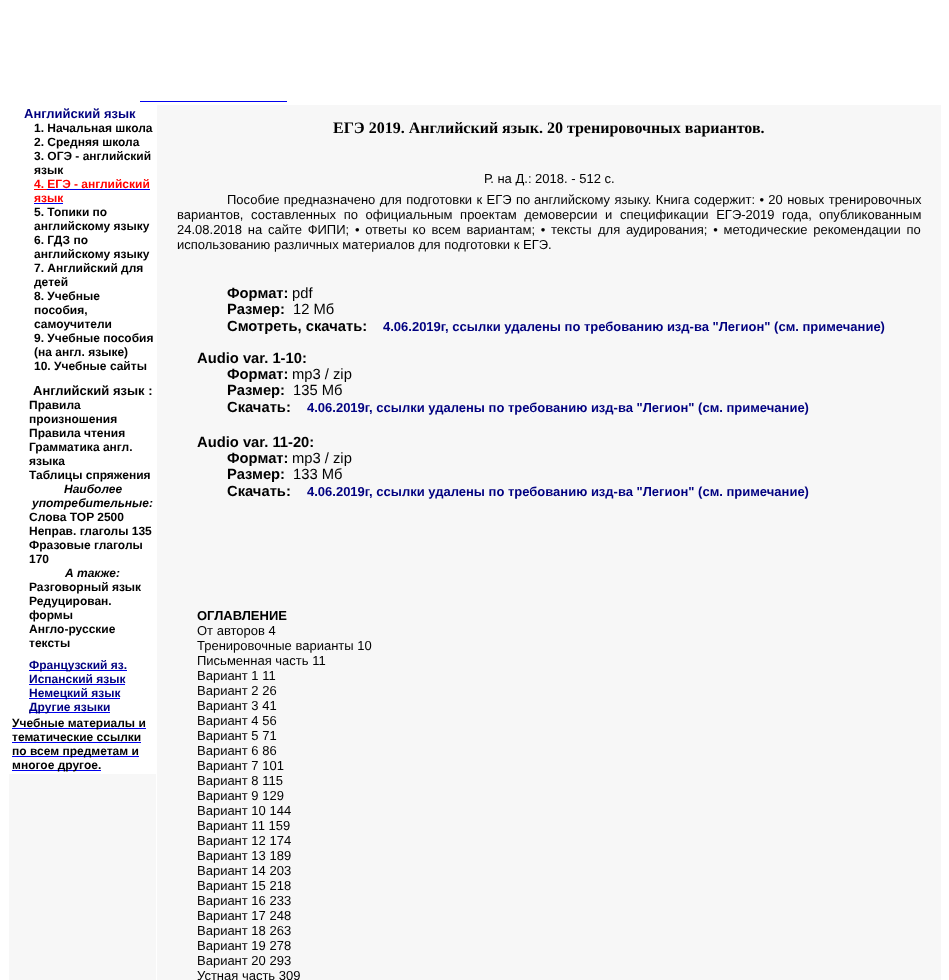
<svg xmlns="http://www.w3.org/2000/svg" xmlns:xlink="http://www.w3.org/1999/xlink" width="949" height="980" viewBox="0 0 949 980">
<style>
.cls-1{font:bold 13px Liberation Sans;fill:#000080}
.cls-2{font:bold 12px Liberation Sans;fill:#000000}
.cls-3{font:bold 12px Liberation Sans;fill:#ff0000}
.cls-4{font:bold 16px Liberation Serif;fill:#000000}
.cls-5{font:13px Liberation Sans;fill:#000000}
.cls-6{font:bold 14.75px Liberation Sans;fill:#000000}
.cls-7{font:14.75px Liberation Sans;fill:#000000}
.cls-8{font:bold 13px Liberation Sans;fill:#000000}
.cls-9{font:italic bold 12px Liberation Sans;fill:#000000}
.cls-10{font:bold 12px Liberation Sans;fill:#000080}
</style>
<rect width="100%" height="100%" fill="#ffffff"/>
<rect fill="#0000ee" x="140" y="101" width="147" height="1"/>
<rect fill="#ff0000" x="34" y="189" width="13" height="1"/>
<rect fill="#0000ee" x="47" y="189" width="103" height="1"/>
<rect fill="#0000ee" x="34" y="203" width="29" height="1"/>
<rect fill="#f7f7f7" x="157" y="105" width="784" height="875"/>
<rect fill="#0000ee" x="29" y="670" width="98" height="1"/>
<rect fill="#0000ee" x="29" y="684" width="96" height="1"/>
<rect fill="#0000ee" x="29" y="698" width="91" height="1"/>
<rect fill="#0000ee" x="29" y="712" width="81" height="1"/>
<rect fill="#0000ee" x="12" y="728" width="134" height="1"/>
<rect fill="#0000ee" x="12" y="742" width="129" height="1"/>
<rect fill="#0000ee" x="12" y="756" width="127" height="1"/>
<rect fill="#0000ee" x="12" y="770" width="89" height="1"/>
<rect fill="#f7f7f7" x="9" y="774" width="147" height="206"/>
<text class="cls-1" x="24" y="118">Английский язык</text>
<text class="cls-2"><tspan x="34" y="132">1. Начальная школа</tspan><tspan x="34" y="146">2. Средняя школа</tspan><tspan x="34" y="160">3. ОГЭ - английский</tspan><tspan x="34" y="174">язык</tspan></text>
<text class="cls-3"><tspan x="34" y="188">4. ЕГЭ - английский</tspan><tspan x="34" y="202">язык</tspan></text>
<text class="cls-2"><tspan x="34" y="216">5. Топики по</tspan><tspan x="34" y="230">английскому языку</tspan><tspan x="34" y="244">6. ГДЗ по</tspan><tspan x="34" y="258">английскому языку</tspan><tspan x="34" y="272">7. Английский для</tspan><tspan x="34" y="286">детей</tspan><tspan x="34" y="300">8. Учебные</tspan><tspan x="34" y="314">пособия,</tspan><tspan x="34" y="328">самоучители</tspan><tspan x="34" y="342">9. Учебные пособия</tspan><tspan x="34" y="356">(на англ. языке)</tspan><tspan x="34" y="370">10. Учебные сайты</tspan></text>
<text class="cls-4" x="333" y="133">ЕГЭ 2019. Английский язык. 20 тренировочных вариантов.</text>
<text class="cls-5" x="484" y="183">Р. на Д.: 2018. - 512 с.</text>
<text class="cls-5" x="227" y="204" word-spacing="0.75">Пособие предназначено для подготовки к ЕГЭ по</text>
<text class="cls-5" x="534" y="204" word-spacing="0.75">английскому языку. Книга содержит: • 20 новых тренировочных</text>
<text class="cls-5" x="177" y="219">вариантов,</text>
<text class="cls-5" x="251" y="219" word-spacing="4">составленных по официальным проектам демоверсии и спецификации ЕГЭ-2019 года,</text>
<text class="cls-5" x="819" y="219">опубликованным</text>
<text class="cls-5" x="177" y="234" word-spacing="2.1">24.08.2018 на сайте ФИПИ; • ответы ко всем вариантам; • тексты</text>
<text class="cls-5" x="598" y="234" word-spacing="2.1">для аудирования; • методические рекомендации по</text>
<text class="cls-5" x="177" y="249">использованию различных материалов для подготовки к ЕГЭ.</text>
<text class="cls-6" x="227" y="298">Формат:</text>
<text class="cls-7" x="292" y="298">pdf</text>
<text class="cls-6" x="227" y="314">Размер:</text>
<text class="cls-7" x="293" y="314">12 Мб</text>
<text class="cls-6" x="227" y="331">Смотреть, скачать:</text>
<text class="cls-1" x="383" y="331">4.06.2019г, ссылки удалены по требованию изд-ва "Легион" (см. примечание)</text>
<text class="cls-6" x="197" y="363">Audio var. 1-10:</text>
<text class="cls-6" x="227" y="379">Формат:</text>
<text class="cls-7" x="292" y="379">mp3 / zip</text>
<text class="cls-6" x="227" y="395">Размер:</text>
<text class="cls-7" x="293" y="395">135 Мб</text>
<text class="cls-6" x="227" y="412">Скачать:</text>
<text class="cls-1" x="307" y="412">4.06.2019г, ссылки удалены по требованию изд-ва "Легион" (см. примечание)</text>
<text class="cls-6" x="197" y="447">Audio var. 11-20:</text>
<text class="cls-6" x="227" y="463">Формат:</text>
<text class="cls-7" x="292" y="463">mp3 / zip</text>
<text class="cls-6" x="227" y="479">Размер:</text>
<text class="cls-7" x="293" y="479">133 Мб</text>
<text class="cls-6" x="227" y="496">Скачать:</text>
<text class="cls-1" x="307" y="496">4.06.2019г, ссылки удалены по требованию изд-ва "Легион" (см. примечание)</text>
<text class="cls-8" x="197" y="620">ОГЛАВЛЕНИЕ</text>
<text class="cls-5"><tspan x="197" y="635">От авторов 4</tspan><tspan x="197" y="650">Тренировочные варианты 10</tspan><tspan x="197" y="665">Письменная часть 11</tspan><tspan x="197" y="680">Вариант 1 11</tspan><tspan x="197" y="695">Вариант 2 26</tspan><tspan x="197" y="710">Вариант 3 41</tspan><tspan x="197" y="725">Вариант 4 56</tspan><tspan x="197" y="740">Вариант 5 71</tspan><tspan x="197" y="755">Вариант 6 86</tspan><tspan x="197" y="770">Вариант 7 101</tspan><tspan x="197" y="785">Вариант 8 115</tspan><tspan x="197" y="800">Вариант 9 129</tspan><tspan x="197" y="815">Вариант 10 144</tspan><tspan x="197" y="830">Вариант 11 159</tspan><tspan x="197" y="845">Вариант 12 174</tspan><tspan x="197" y="860">Вариант 13 189</tspan><tspan x="197" y="875">Вариант 14 203</tspan><tspan x="197" y="890">Вариант 15 218</tspan><tspan x="197" y="905">Вариант 16 233</tspan><tspan x="197" y="920">Вариант 17 248</tspan><tspan x="197" y="935">Вариант 18 263</tspan><tspan x="197" y="950">Вариант 19 278</tspan><tspan x="197" y="965">Вариант 20 293</tspan><tspan x="197" y="980">Устная часть 309</tspan></text>
<text class="cls-8" x="33" y="395">Английский язык :</text>
<text class="cls-2"><tspan x="29" y="409">Правила</tspan><tspan x="29" y="423">произношения</tspan><tspan x="29" y="437">Правила чтения</tspan><tspan x="29" y="451">Грамматика англ.</tspan><tspan x="29" y="465">языка</tspan><tspan x="29" y="479">Таблицы спряжения</tspan></text>
<text class="cls-9" x="64" y="493">Наиболее</text>
<text class="cls-9" x="32" y="507">употребительные:</text>
<text class="cls-2"><tspan x="29" y="521">Слова TOP 2500</tspan><tspan x="29" y="535">Неправ. глаголы 135</tspan><tspan x="29" y="549">Фразовые глаголы</tspan><tspan x="29" y="563">170</tspan></text>
<text class="cls-9" x="65" y="577">А также:</text>
<text class="cls-2"><tspan x="29" y="591">Разговорный язык</tspan><tspan x="29" y="605">Редуцирован.</tspan><tspan x="29" y="619">формы</tspan><tspan x="29" y="633">Англо-русские</tspan><tspan x="29" y="647">тексты</tspan></text>
<text class="cls-10"><tspan x="29" y="669">Французский яз.</tspan><tspan x="29" y="683">Испанский язык</tspan><tspan x="29" y="697">Немецкий язык</tspan><tspan x="29" y="711">Другие языки</tspan></text>
<text class="cls-2"><tspan x="12" y="727">Учебные материалы и</tspan><tspan x="12" y="741">тематические ссылки</tspan><tspan x="12" y="755">по всем предметам и</tspan><tspan x="12" y="769">многое другое.</tspan></text>
</svg>
